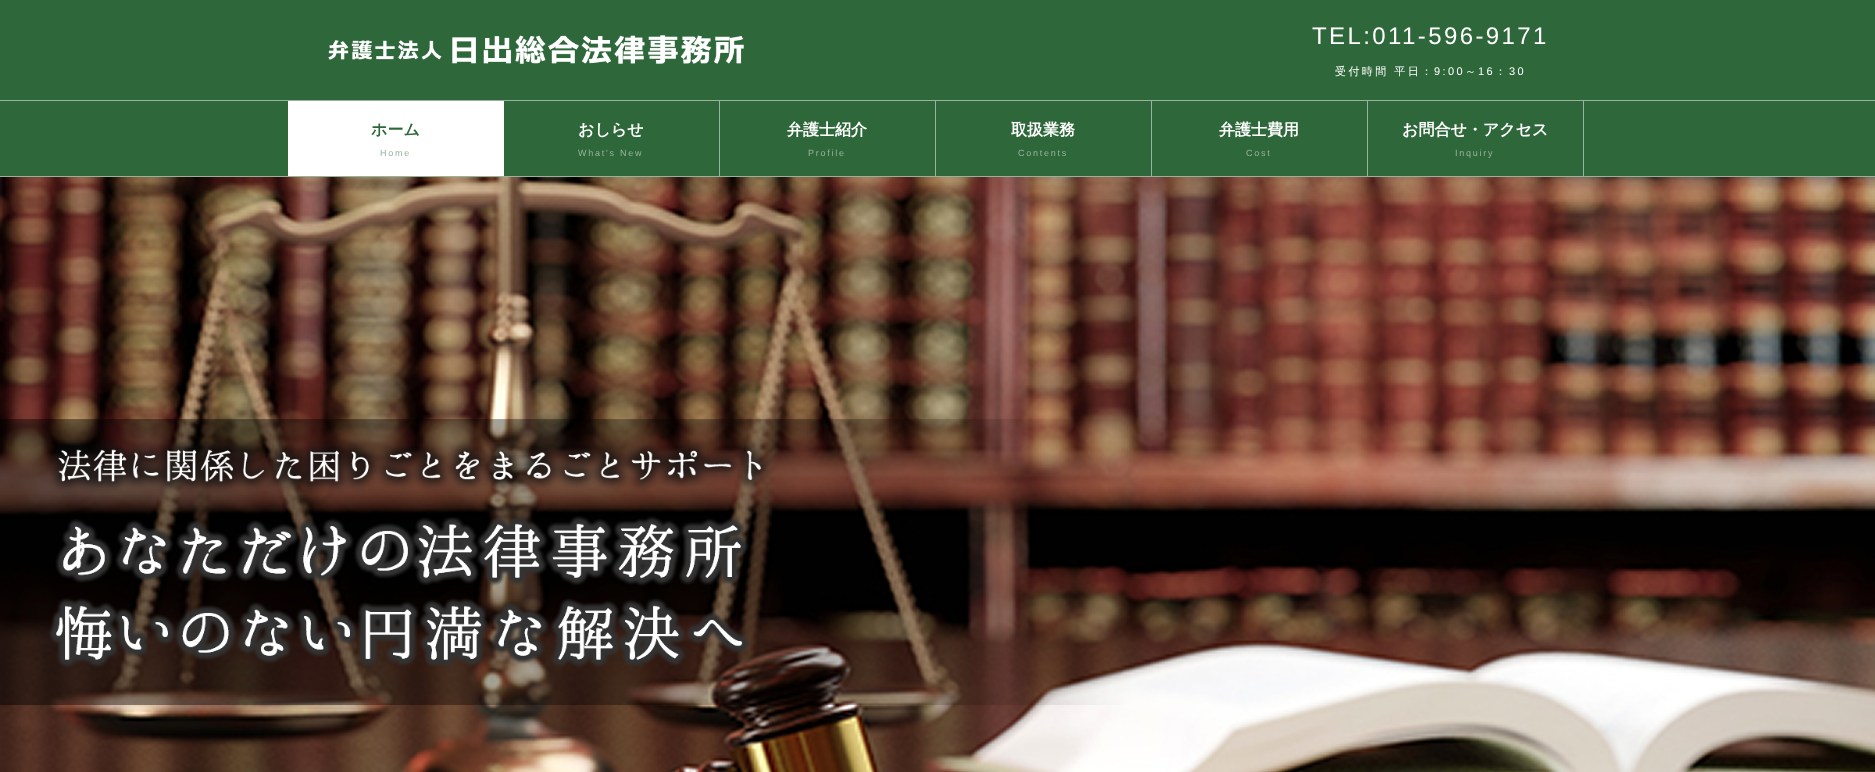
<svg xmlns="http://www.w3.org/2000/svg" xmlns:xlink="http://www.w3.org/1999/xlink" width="1875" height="772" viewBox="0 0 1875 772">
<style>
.cls-1{font:24px Liberation Sans;letter-spacing:2.4px;fill:#ffffff}
.cls-2{font:500 11px WenQuanYi Zen Hei;letter-spacing:2.4px;fill:#ffffff}
.cls-3{font:11px Liberation Sans;letter-spacing:2.4px;fill:#ffffff}
.cls-4{font:bold 16px WenQuanYi Zen Hei;fill:#2e673a}
.cls-5{font:9px Liberation Sans;letter-spacing:1.75px;fill:#97b39d}
.cls-6{font:bold 16px WenQuanYi Zen Hei;fill:#ffffff}
</style>
<rect width="100%" height="100%" fill="#2e673a"/>
<image xlink:href="image0.png" x="328" y="35" width="416" height="29"/>
<rect fill="#97b39d" x="0" y="100" width="1875" height="1"/>
<rect fill="#97b39d" x="0" y="176" width="1875" height="1"/>
<rect fill="#ffffff" x="288" y="101" width="216" height="75"/>
<rect fill="#97b39d" x="719" y="101" width="1" height="75"/>
<rect fill="#97b39d" x="935" y="101" width="1" height="75"/>
<rect fill="#97b39d" x="1151" y="101" width="1" height="75"/>
<rect fill="#97b39d" x="1367" y="101" width="1" height="75"/>
<rect fill="#97b39d" x="1583" y="101" width="1" height="75"/>
<image xlink:href="image1.png" x="0" y="177" width="1875" height="595"/>
<text class="cls-1" x="1312" y="44">TEL:011-596-9171</text>
<text class="cls-2" x="1335" y="75">受付時間 平日：</text>
<text class="cls-3" x="1434" y="75">9:00</text>
<text class="cls-2" x="1465" y="75">～</text>
<text class="cls-3" x="1478" y="75">16</text>
<text class="cls-2" x="1495" y="75">：</text>
<text class="cls-3" x="1509" y="75">30</text>
<text class="cls-4" x="371" y="135">ホーム</text>
<text class="cls-5" x="380" y="156">Home</text>
<text class="cls-6" x="578" y="135">おしらせ</text>
<text class="cls-5" x="578" y="156">What's New</text>
<text class="cls-6" x="787" y="135">弁護士紹介</text>
<text class="cls-5" x="808" y="156">Profile</text>
<text class="cls-6" x="1011" y="135">取扱業務</text>
<text class="cls-5" x="1018" y="156">Contents</text>
<text class="cls-6" x="1219" y="135">弁護士費用</text>
<text class="cls-5" x="1246" y="156">Cost</text>
<text class="cls-6" x="1402" y="135">お問合せ・アクセス</text>
<text class="cls-5" x="1455" y="156">Inquiry</text>
</svg>
